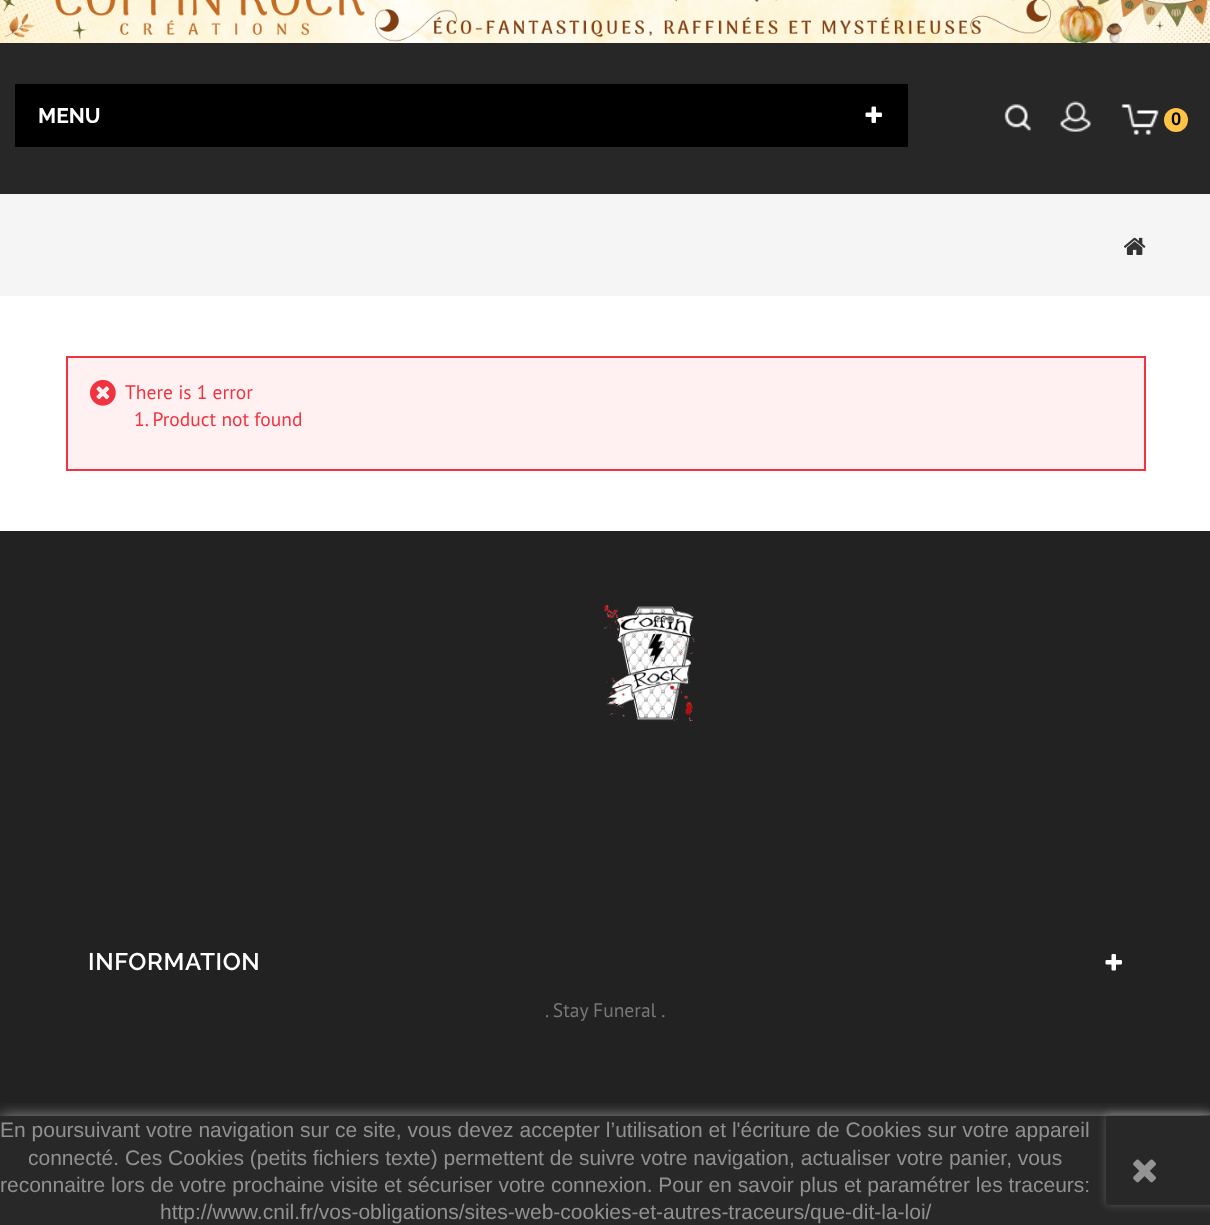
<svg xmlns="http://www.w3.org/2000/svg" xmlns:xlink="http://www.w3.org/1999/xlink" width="1210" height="1225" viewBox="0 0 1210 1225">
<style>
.cls-1{font:bold 21px Raleway;fill:#ffffff}
.cls-2{font:bold 18px PT Sans;fill:#000000}
.cls-3{font:19.5px PT Sans;fill:#f13340}
.cls-4{font:600 24px Raleway;letter-spacing:0.6px;fill:#ffffff}
.cls-5{font:19.5px PT Sans;fill:#777777}
.cls-6{font:21px Liberation Sans;fill:#919191}
</style>
<defs>
<clipPath id="clip1"><rect x="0" y="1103" width="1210" height="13"/></clipPath>
<clipPath id="clip2"><path d="M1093 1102H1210V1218H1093ZM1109 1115H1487C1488.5 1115 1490 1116.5 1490 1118V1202C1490 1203.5 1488.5 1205 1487 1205H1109C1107.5 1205 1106 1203.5 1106 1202V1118C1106 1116.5 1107.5 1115 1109 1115Z" clip-rule="evenodd"/></clipPath>
</defs>
<rect width="100%" height="100%" fill="#ffffff"/>
<rect fill="#272727" x="0" y="43" width="1210" height="151"/>
<image xlink:href="image0.png" x="0" y="0" width="1210" height="43"/>
<rect fill="#000000" x="15" y="84" width="893" height="63"/>
<image xlink:href="image1.png" x="865" y="106" width="17" height="17"/>
<image xlink:href="image2.png" x="1004" y="104" width="28" height="27"/>
<image xlink:href="image3.png" x="1060" y="101" width="31" height="31"/>
<image xlink:href="image4.png" x="1121" y="104" width="38" height="31"/>
<circle fill="#ffc446" cx="1176" cy="120" r="12"/>
<rect fill="#f5f5f5" x="0" y="194" width="1210" height="102"/>
<image xlink:href="image5.png" x="1123" y="237" width="23" height="18"/>
<rect fill="#fff1f2" stroke="#f13340" stroke-width="2" x="67" y="357" width="1078" height="113"/>
<image xlink:href="image6.png" x="90" y="379" width="26" height="27"/>
<rect fill="#222222" x="0" y="531" width="1210" height="694"/>
<image xlink:href="image7.png" x="604" y="605" width="91" height="116"/>
<image xlink:href="image8.png" x="1105" y="954" width="17" height="17"/>
<g clip-path="url(#clip1)">
<rect fill="#ffffff" fill-opacity="0.5" filter="blur(7.5px)" x="0" y="1116" width="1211" height="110"/>
</g>
<g clip-path="url(#clip2)">
<rect fill="#808080" filter="blur(4px)" x="1106" y="1115" width="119" height="90" rx="3"/>
</g>
<rect fill="#2e2e2e" fill-opacity="0.5" x="0" y="1116" width="1210" height="109"/>
<image xlink:href="image9.png" x="1133" y="1159" width="23" height="24"/>
<text class="cls-1" x="38" y="123">MENU</text>
<text class="cls-2" x="1171" y="125">0</text>
<text class="cls-3" x="125" y="399">There is 1 error</text>
<text class="cls-3" x="134" y="426">1. Product not found</text>
<text class="cls-4" x="88" y="970">INFORMATION</text>
<text class="cls-5" x="545" y="1017">. Stay Funeral .</text>
<text class="cls-6" x="0" y="1137">En poursuivant votre navigation sur ce site, vous devez accepter l’utilisation et l'écriture de Cookies sur votre appareil</text>
<text class="cls-6" x="28" y="1165">connecté. Ces Cookies (petits fichiers texte) permettent de suivre votre navigation, actualiser votre panier, vous</text>
<text class="cls-6" x="0" y="1192">reconnaitre lors de votre prochaine visite et sécuriser votre connexion. Pour en savoir plus et paramétrer les traceurs:</text>
<text class="cls-6" x="160" y="1219">http://www.cnil.fr/vos-obligations/sites-web-cookies-et-autres-traceurs/que-dit-la-loi/</text>
</svg>
